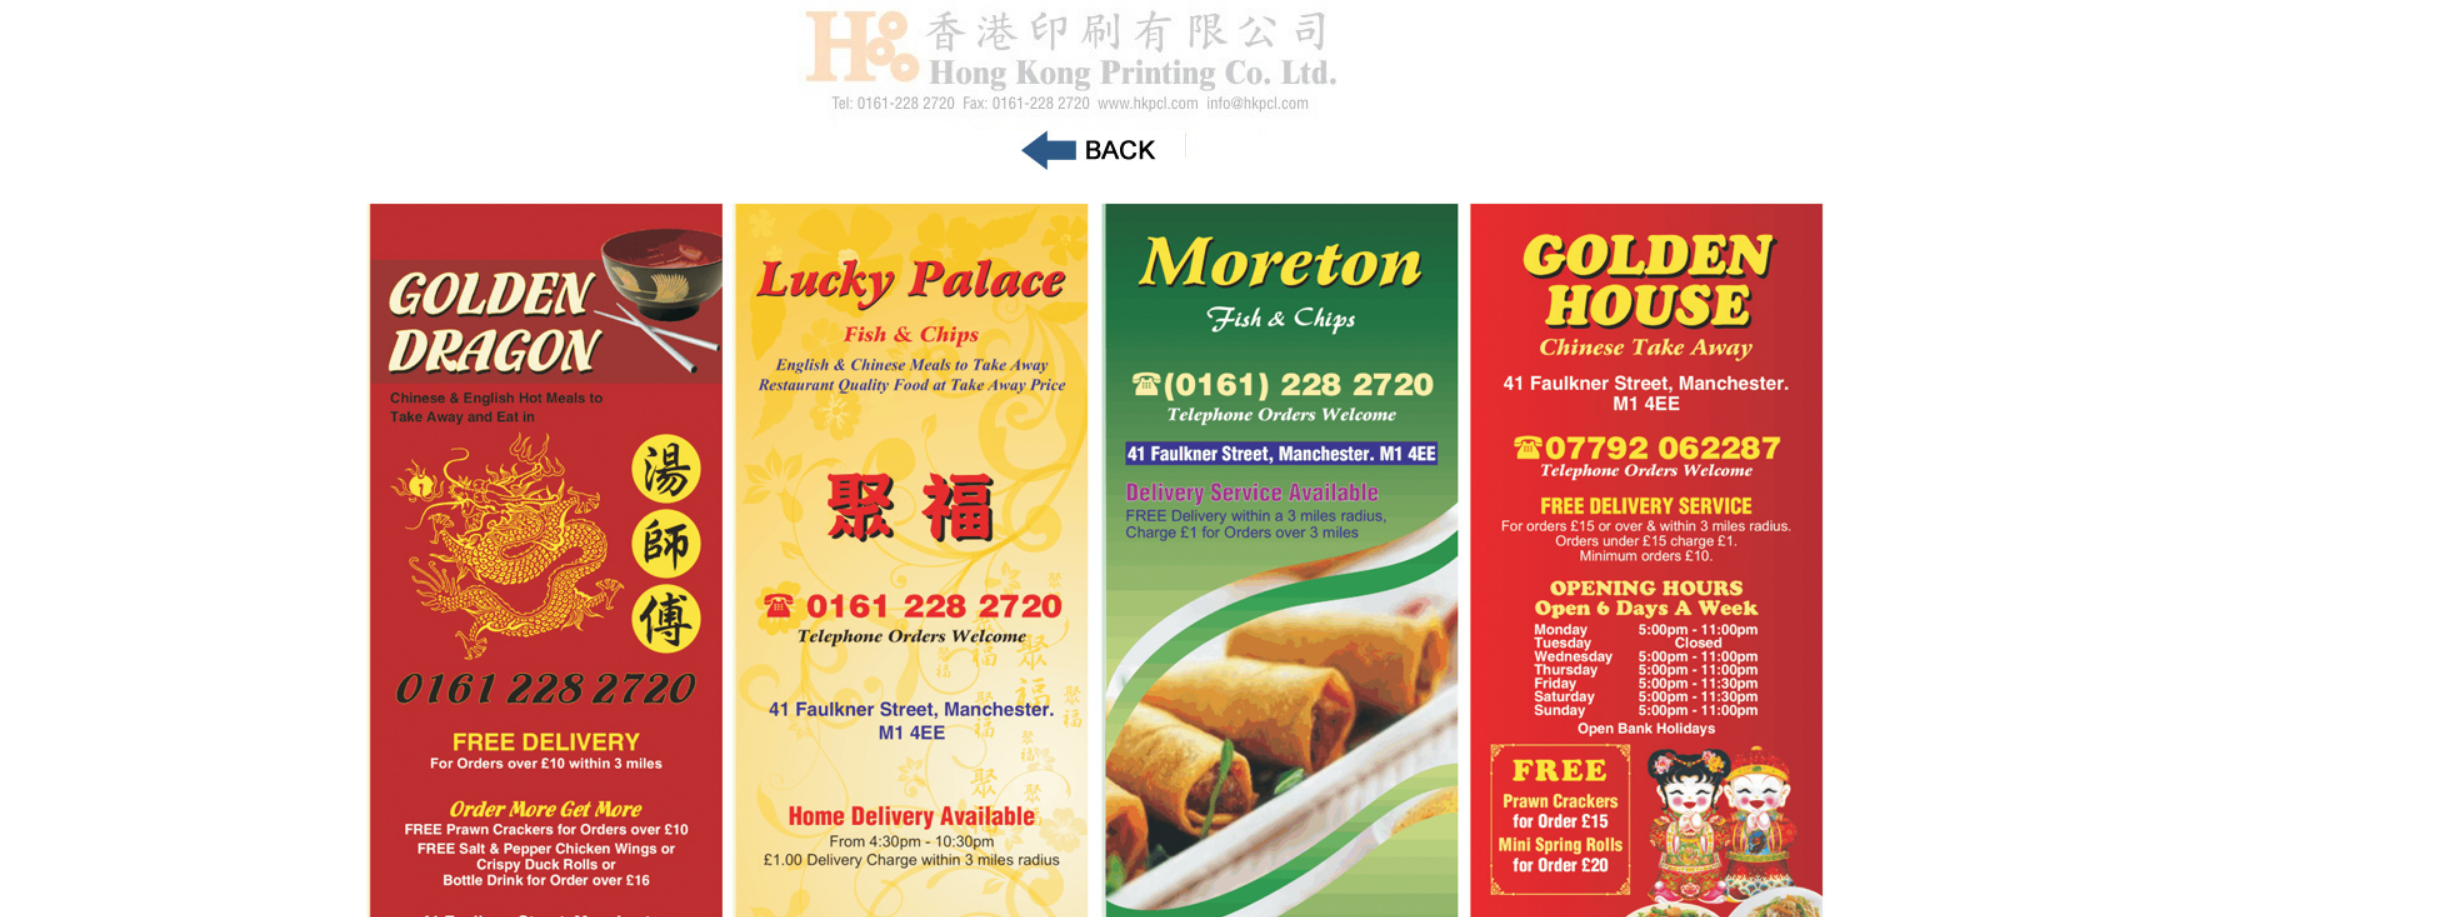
<svg xmlns="http://www.w3.org/2000/svg" xmlns:xlink="http://www.w3.org/1999/xlink" width="2461" height="917" viewBox="0 0 2461 917">
<rect width="100%" height="100%" fill="#ffffff"/>
<image xlink:href="image0.png" x="797" y="0" width="540" height="160"/>
<rect fill="#ffffff" x="978" y="130" width="207" height="30"/>
<image xlink:href="image1.png" x="1021" y="130" width="139" height="40"/>
<image xlink:href="image2.png" x="366" y="202" width="1460" height="715"/>
</svg>
